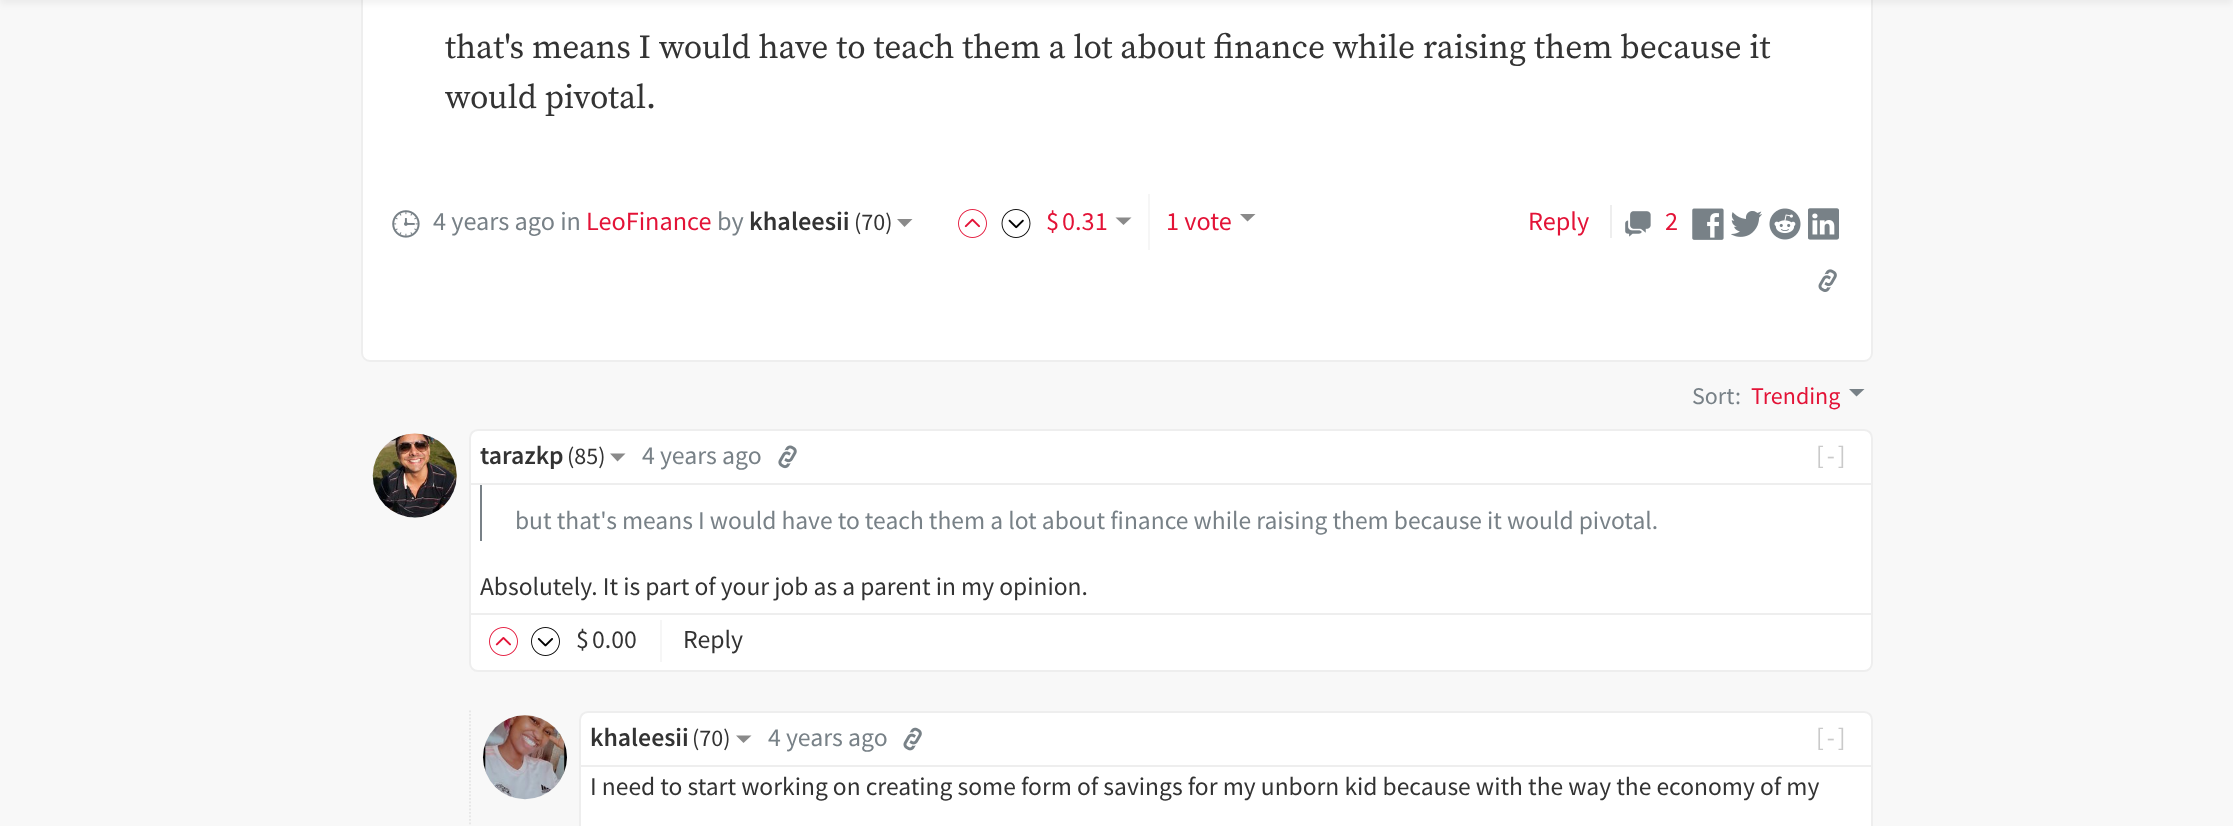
<svg xmlns="http://www.w3.org/2000/svg" xmlns:xlink="http://www.w3.org/1999/xlink" width="2233" height="826" viewBox="0 0 2233 826">
<style>
.cls-1{font:33.6px Source Serif Pro;fill:#333333}
.cls-2{font:26.25px Source Sans Pro;fill:#788187}
.cls-3{font:26.25px Source Sans Pro;fill:#e31337}
.cls-4{font:600 26.25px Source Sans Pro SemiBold;fill:#333333}
.cls-5{font:24px Source Sans Pro;fill:#333333}
.cls-6{font:24px Source Sans Pro;fill:#788187}
.cls-7{font:24px Source Sans Pro;fill:#e31337}
.cls-8{font:600 25.75px Source Sans Pro SemiBold;fill:#333333}
.cls-9{font:25.75px Source Sans Pro;fill:#788187}
.cls-10{font:25.75px Source Sans Pro;letter-spacing:3px;fill:#cacaca}
.cls-11{font:25.5px Source Sans Pro;fill:#788187}
.cls-12{font:25.5px Source Sans Pro;fill:#333333}
.cls-13{font:25.75px Source Sans Pro;fill:#333333}
</style>
<rect width="100%" height="100%" fill="#f8f8f8"/>
<rect fill="#ffffff" stroke="#eeeeee" stroke-width="2" x="362" y="-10" width="1510" height="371" rx="8"/>
<rect fill="#000000" fill-opacity="0.05" filter="blur(3.5px)" x="0" y="-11" width="2233" height="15"/>
<image xlink:href="image0.png" x="392" y="210" width="28" height="28"/>
<path fill="#8a8a8a" d="M897 219L904.5 227L912.5 219Z"/>
<rect fill="#f6f6f6" x="1148" y="194" width="2" height="56"/>
<image xlink:href="image1.png" x="958" y="209" width="29" height="29"/>
<image xlink:href="image2.png" x="1001" y="209" width="30" height="29"/>
<path fill="#8a8a8a" d="M1115.5 217.5L1123.5 225L1131.5 217.5Z"/>
<path fill="#8a8a8a" d="M1240 214L1247.5 221.5L1255.5 214Z"/>
<rect fill="#eeeeee" x="1610" y="205" width="2" height="33"/>
<image xlink:href="image3.png" x="1625" y="211" width="26" height="26"/>
<image xlink:href="image4.png" x="1692" y="208" width="32" height="32"/>
<image xlink:href="image5.png" x="1731" y="211" width="31" height="26"/>
<image xlink:href="image6.png" x="1769" y="208" width="32" height="32"/>
<image xlink:href="image7.png" x="1808" y="208" width="31" height="32"/>
<image xlink:href="image8.png" x="1818" y="269" width="19" height="23"/>
<path fill="#788187" d="M1849 389L1856.5 396.5L1864.5 389Z"/>
<image xlink:href="image9.png" x="372" y="433" width="85" height="85"/>
<path fill="#ffffff" stroke="#eeeeee" stroke-width="2" d="M478 430H1864C1868.5 430 1872 433.5 1872 438V484H470V438C470 433.5 473.5 430 478 430Z"/>
<path fill="#8a8a8a" d="M610 453.5L617.5 461.5L625.5 453.5Z"/>
<image xlink:href="image10.png" x="778" y="445" width="19" height="24"/>
<rect fill="#ffffff" x="471" y="485" width="1400" height="128"/>
<rect fill="#eeeeee" x="1871" y="485" width="2" height="128"/>
<rect fill="#eeeeee" x="469" y="485" width="2" height="128"/>
<rect fill="#788187" x="480" y="485" width="2" height="56"/>
<path fill="#ffffff" stroke="#eeeeee" stroke-width="2" d="M470 614H1872V663C1872 667.5 1868.5 671 1864 671H478C473.5 671 470 667.5 470 663Z"/>
<rect fill="#f6f6f6" x="660" y="620" width="2" height="42"/>
<image xlink:href="image11.png" x="489" y="627" width="29" height="29"/>
<image xlink:href="image12.png" x="531" y="627" width="29" height="29"/>
<path fill="none" stroke="#e5e5e5" stroke-width="1.8" stroke-dasharray="1.75 1.75" d="M470 710.5V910"/>
<image xlink:href="image13.png" x="482" y="715" width="85" height="85"/>
<path fill="#ffffff" stroke="#eeeeee" stroke-width="2" d="M588 712H1864C1868.5 712 1872 715.5 1872 720V766H580V720C580 715.5 583.5 712 588 712Z"/>
<path fill="#8a8a8a" d="M736 735.5L743.5 743L751.5 735.5Z"/>
<image xlink:href="image14.png" x="903" y="727" width="19" height="24"/>
<rect fill="#ffffff" x="581" y="767" width="1290" height="59"/>
<rect fill="#eeeeee" x="1871" y="767" width="2" height="59"/>
<rect fill="#eeeeee" x="579" y="767" width="2" height="59"/>
<text class="cls-1"><tspan x="445" y="58">that's means I would have to teach them a lot about finance while raising them because it</tspan><tspan x="445" y="108">would pivotal.</tspan></text>
<text class="cls-2" x="433" y="230">4 years ago in</text>
<text class="cls-3" x="586" y="230">LeoFinance</text>
<text class="cls-2" x="717" y="230">by</text>
<text class="cls-4" x="749" y="230">khaleesii</text>
<text class="cls-5" x="854" y="230">(70)</text>
<text class="cls-3" x="1046" y="230">$</text>
<text class="cls-3" x="1062" y="230">0.31</text>
<text class="cls-3" x="1166" y="230">1 vote</text>
<text class="cls-3" x="1528" y="230">Reply</text>
<text class="cls-3" x="1665" y="230">2</text>
<text class="cls-6" x="1692" y="404">Sort</text>
<text class="cls-6" x="1735" y="404">:</text>
<text class="cls-7" x="1751" y="404">Trending</text>
<text class="cls-8" x="480" y="464">tarazkp</text>
<text class="cls-5" x="567" y="464">(85)</text>
<text class="cls-9" x="642" y="464">4 years ago</text>
<text class="cls-10" x="1816" y="464">[-]</text>
<text class="cls-11" x="515" y="529">but that's means I would have to teach them a lot about finance while raising them because it would pivotal.</text>
<text class="cls-12" x="480" y="595">Absolutely. It is part of your job as a parent in my opinion.</text>
<text class="cls-13" x="576" y="648">$</text>
<text class="cls-13" x="592" y="648">0.00</text>
<text class="cls-13" x="683" y="648">Reply</text>
<text class="cls-8" x="590" y="746">khaleesii</text>
<text class="cls-5" x="692" y="746">(70)</text>
<text class="cls-9" x="768" y="746">4 years ago</text>
<text class="cls-10" x="1816" y="746">[-]</text>
<text class="cls-12" x="590" y="795">I need to start working on creating some form of savings for my unborn kid because with the way the economy of my</text>
</svg>
